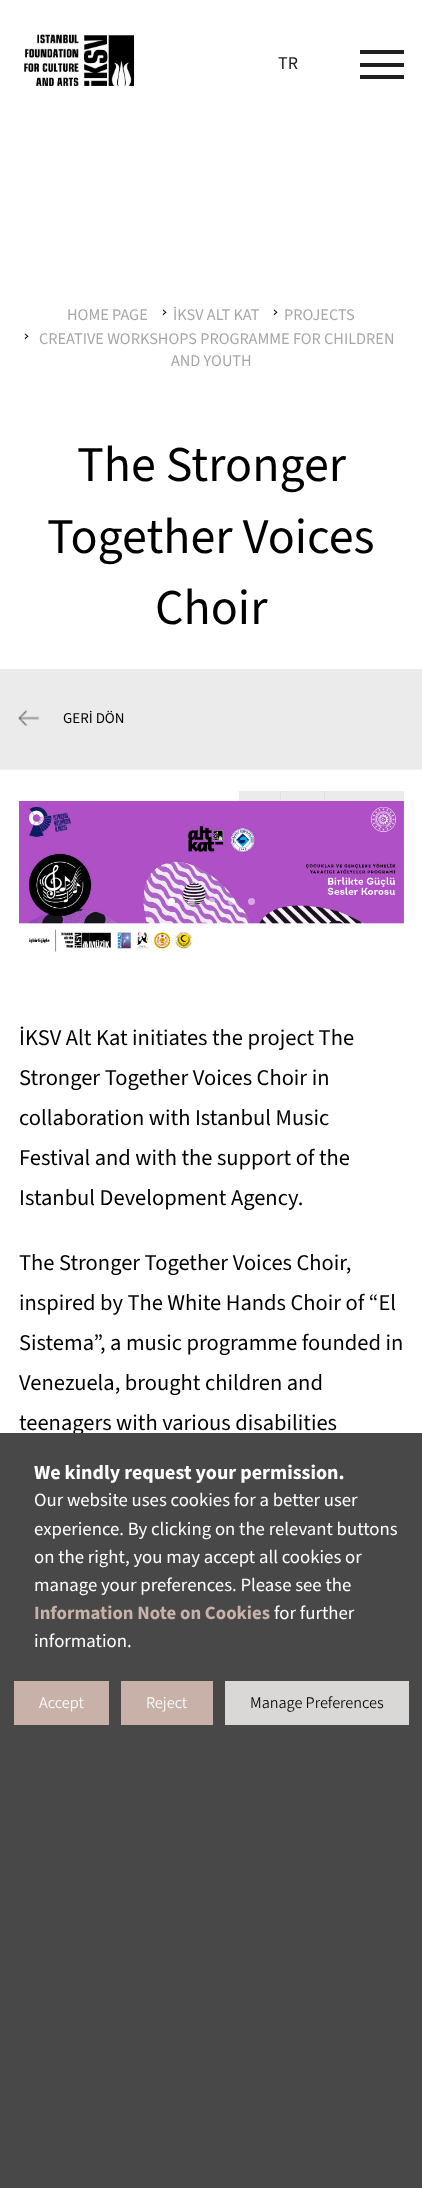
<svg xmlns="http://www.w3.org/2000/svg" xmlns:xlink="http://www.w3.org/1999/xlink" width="422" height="2188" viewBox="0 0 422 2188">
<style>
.cls-1{font:18px 'Source Sans 3';fill:#202020}
.cls-2{font:16.25px 'Source Sans 3';fill:#a7a7a7}
.cls-3{font:16.25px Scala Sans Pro;fill:#000000}
.cls-4{font:50px 'Source Sans 3';fill:#000000}
.cls-5{font:15px 'Source Sans 3';fill:#000000}
.cls-6{font:22.5px 'Source Sans 3';fill:#000000}
.cls-7{font:bold 20px 'Source Sans 3';fill:#ffffff}
.cls-8{font:18.75px 'Source Sans 3';fill:#ffffff}
.cls-9{font:bold 18.75px 'Source Sans 3';fill:#c8b1a8}
.cls-10{font:300 16.25px 'Source Sans 3';fill:#ffffff}
.cls-11{font:300 16.25px 'Source Sans 3';fill:#000000}
</style>
<rect width="100%" height="100%" fill="#ffffff"/>
<image xlink:href="image0.png" x="24" y="34" width="111" height="52"/>
<rect fill="#202020" x="360" y="50" width="44" height="4"/>
<rect fill="#202020" x="360" y="63" width="44" height="4"/>
<rect fill="#202020" x="360" y="75" width="44" height="4"/>
<rect fill="#f2f2f2" x="0" y="769" width="422" height="1"/>
<rect fill="#ebebeb" x="0" y="669" width="422" height="100"/>
<image xlink:href="image1.png" x="18" y="710" width="21" height="16"/>
<rect fill="#ebebeb" x="239" y="791" width="41" height="10"/>
<rect fill="#ebebeb" x="281" y="791" width="43" height="10"/>
<rect fill="#dfdfdf" x="324" y="791" width="1" height="10"/>
<rect fill="#dfdfdf" x="280" y="791" width="1" height="10"/>
<rect fill="#ebebeb" x="325" y="791" width="36" height="10"/>
<rect fill="#ebebeb" x="361" y="791" width="43" height="57"/>
<image xlink:href="image2.png" x="19" y="801" width="385" height="151"/>
<circle fill="#ffffff" cx="171.5" cy="901.5" r="3.5"/>
<circle fill="#ffffff" fill-opacity="0.5" cx="191.5" cy="901.5" r="3.5"/>
<circle fill="#ffffff" fill-opacity="0.5" cx="211.5" cy="901.5" r="3.5"/>
<circle fill="#ffffff" fill-opacity="0.5" cx="231.5" cy="901.5" r="3.5"/>
<circle fill="#d7a8e3" cx="251.5" cy="901.5" r="3.5"/>
<text class="cls-1" x="278" y="69">TR</text>
<text class="cls-2" x="67" y="320">HOME PAGE</text>
<text class="cls-3" x="162" y="316">›</text>
<text class="cls-2" x="173" y="320">İKSV ALT KAT</text>
<text class="cls-3" x="273" y="316">›</text>
<text class="cls-2" x="284" y="320">PROJECTS</text>
<text class="cls-3" x="24" y="340">›</text>
<text class="cls-2" x="39" y="344">CREATIVE WORKSHOPS PROGRAMME FOR CHILDREN</text>
<text class="cls-2" x="171" y="366">AND YOUTH</text>
<text class="cls-4" x="77" y="481">The Stronger</text>
<text class="cls-4" x="47" y="553">Together Voices</text>
<text class="cls-4" x="155" y="624">Choir</text>
<text class="cls-5" x="63" y="723">GERİ DÖN</text>
<text class="cls-6"><tspan x="19" y="1045">İKSV Alt Kat initiates the project The</tspan><tspan x="19" y="1085">Stronger Together Voices Choir in</tspan><tspan x="19" y="1125">collaboration with Istanbul Music</tspan><tspan x="19" y="1165">Festival and with the support of the</tspan><tspan x="19" y="1205">Istanbul Development Agency.</tspan></text>
<text class="cls-6"><tspan x="19" y="1270">The Stronger Together Voices Choir,</tspan><tspan x="19" y="1310">inspired by The White Hands Choir of “El</tspan><tspan x="19" y="1350">Sistema”, a music programme founded in</tspan><tspan x="19" y="1390">Venezuela, brought children and</tspan><tspan x="19" y="1430">teenagers with various disabilities</tspan></text>
<rect fill="#484848" x="0" y="1433" width="422" height="755"/>
<text class="cls-7" x="34" y="1479">We kindly request your permission.</text>
<text class="cls-8"><tspan x="34" y="1506">Our website uses cookies for a better user</tspan><tspan x="34" y="1535">experience. By clicking on the relevant buttons</tspan><tspan x="34" y="1563">on the right, you may accept all cookies or</tspan><tspan x="34" y="1591">manage your preferences. Please see the</tspan></text>
<text class="cls-9" x="34" y="1619">Information Note on Cookies</text>
<text class="cls-8" x="274" y="1619">for further</text>
<text class="cls-8" x="34" y="1647">information.</text>
<rect fill="#c8b1a8" x="14" y="1681" width="95" height="44"/>
<text class="cls-10" x="39" y="1708">Accept</text>
<rect fill="#c8b1a8" x="121" y="1681" width="92" height="44"/>
<text class="cls-10" x="146" y="1708">Reject</text>
<rect fill="#dad7d7" x="225" y="1681" width="184" height="44"/>
<text class="cls-11" x="250" y="1708">Manage Preferences</text>
</svg>
